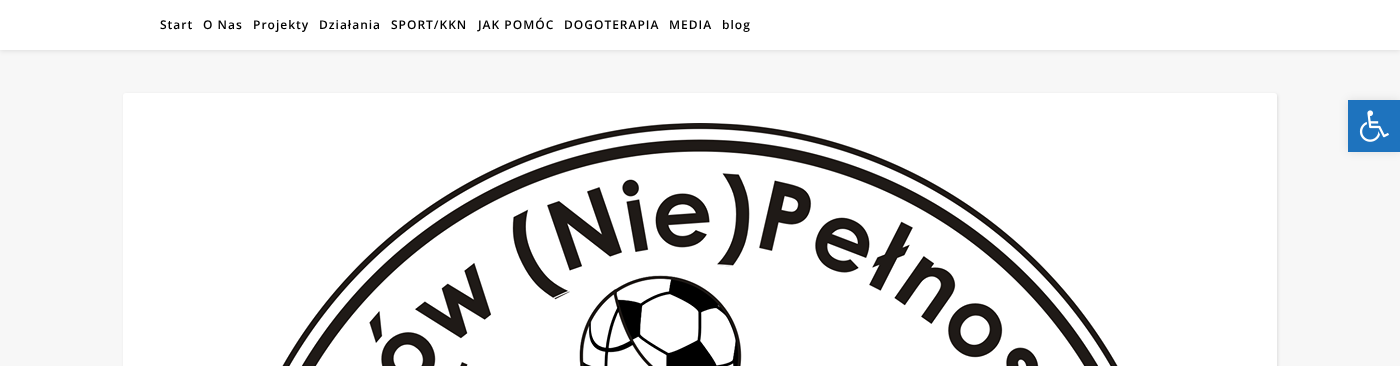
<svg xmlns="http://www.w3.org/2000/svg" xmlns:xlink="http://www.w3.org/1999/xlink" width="1400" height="366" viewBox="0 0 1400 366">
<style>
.cls-1{font:600 12px Open Sans;letter-spacing:1px;fill:#000000}
</style>
<rect width="100%" height="100%" fill="#f7f7f7"/>
<rect fill="#000000" fill-opacity="0.1" filter="blur(2.5px)" x="0" y="1" width="1400" height="50"/>
<rect fill="#ffffff" x="0" y="0" width="1400" height="50"/>
<rect fill="#000000" fill-opacity="0.1" filter="blur(1.5px)" x="124" y="94" width="1154" height="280" rx="3"/>
<rect fill="#ffffff" x="123" y="93" width="1154" height="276" rx="3"/>
<image xlink:href="image0.png" x="282" y="123" width="836" height="243"/>
<rect fill="#000000" fill-opacity="0.1" filter="blur(5px)" x="1348" y="100" width="52" height="52"/>
<rect fill="#1e73be" x="1348" y="100" width="52" height="52"/>
<image xlink:href="image1.png" x="1359" y="110" width="30" height="32"/>
<text class="cls-1" x="160" y="29">Start</text>
<text class="cls-1" x="203" y="29">O Nas</text>
<text class="cls-1" x="253" y="29">Projekty</text>
<text class="cls-1" x="319" y="29">Działania</text>
<text class="cls-1" x="391" y="29">SPORT/KKN</text>
<text class="cls-1" x="478" y="29">JAK POMÓC</text>
<text class="cls-1" x="564" y="29">DOGOTERAPIA</text>
<text class="cls-1" x="669" y="29">MEDIA</text>
<text class="cls-1" x="722" y="29">blog</text>
</svg>
